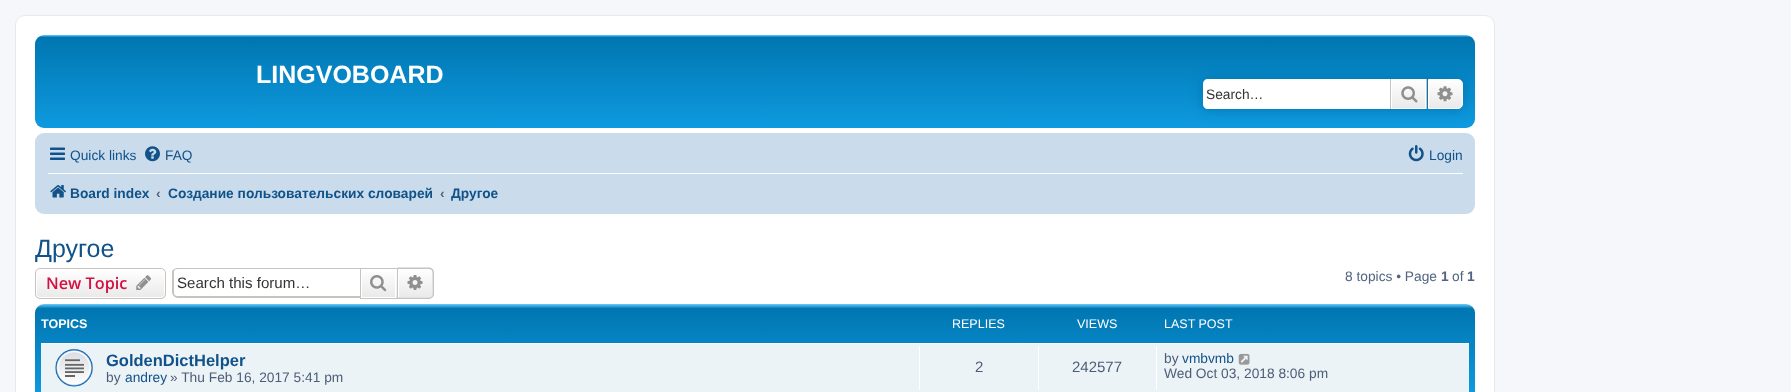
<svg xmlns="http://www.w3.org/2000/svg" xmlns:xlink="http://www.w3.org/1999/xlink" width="1791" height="392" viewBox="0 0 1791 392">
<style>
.cls-1{font:bold 25px Liberation Sans;fill:#ffffff}
.cls-2{font:13.75px Liberation Sans;fill:#333333}
.cls-3{font:13.75px Liberation Sans;fill:#105289}
.cls-4{font:bold 13.75px Liberation Sans;fill:#105289}
.cls-5{font:bold 13.75px Liberation Sans;fill:#536482}
.cls-6{font:25px Liberation Sans;fill:#105289}
.cls-7{font:600 16.25px Open Sans;fill:#d31141}
.cls-8{font:15.1px Liberation Sans;fill:#333333}
.cls-9{font:13.75px Liberation Sans;fill:#536482}
.cls-10{font:bold 12.5px Liberation Sans;fill:#ffffff}
.cls-11{font:12.5px Liberation Sans;fill:#ffffff}
.cls-12{font:bold 16.5px Liberation Sans;fill:#105289}
.cls-13{font:13.75px Liberation Sans;fill:#4c5d77}
.cls-14{font:15px Liberation Sans;fill:#4c5d77}
</style>
<defs>
<linearGradient id="g1" gradientUnits="userSpaceOnUse" x1="755" y1="35" x2="755" y2="150"><stop offset="0" stop-color="#6aceff"/><stop offset="0.02" stop-color="#0076b1"/><stop offset="1" stop-color="#12a3eb"/></linearGradient>
<linearGradient id="g2" gradientUnits="userSpaceOnUse" x1="1409" y1="79" x2="1409" y2="109"><stop offset="0" stop-color="#ffffff"/><stop offset="1" stop-color="#e9e9e9"/></linearGradient>
<linearGradient id="g3" gradientUnits="userSpaceOnUse" x1="1445" y1="79" x2="1445" y2="109"><stop offset="0" stop-color="#ffffff"/><stop offset="1" stop-color="#e9e9e9"/></linearGradient>
<clipPath id="clip1"><rect x="35" y="268" width="131" height="31" rx="5"/></clipPath>
<linearGradient id="g4" gradientUnits="userSpaceOnUse" x1="101" y1="269" x2="101" y2="298"><stop offset="0" stop-color="#ffffff"/><stop offset="1" stop-color="#e9e9e9"/></linearGradient>
<linearGradient id="g5" gradientUnits="userSpaceOnUse" x1="379" y1="269" x2="379" y2="298"><stop offset="0" stop-color="#ffffff"/><stop offset="1" stop-color="#e9e9e9"/></linearGradient>
<linearGradient id="g6" gradientUnits="userSpaceOnUse" x1="415" y1="269" x2="415" y2="298"><stop offset="0" stop-color="#ffffff"/><stop offset="1" stop-color="#e9e9e9"/></linearGradient>
<linearGradient id="g7" gradientUnits="userSpaceOnUse" x1="755" y1="304" x2="755" y2="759"><stop offset="0" stop-color="#6aceff"/><stop offset="0.01" stop-color="#0076b1"/><stop offset="0.25" stop-color="#12a3eb"/><stop offset="1" stop-color="#12a3eb"/></linearGradient>
</defs>
<rect width="100%" height="100%" fill="#f5f7fa"/>
<rect fill="#ffffff" stroke="#e6e9ed" x="15.5" y="15.5" width="1479" height="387" rx="9.5"/>
<rect fill="url(#g1)" x="35" y="35" width="1440" height="93" rx="9"/>
<rect fill="#0075b0" filter="blur(6px)" x="1203" y="79" width="260" height="30" rx="5"/>
<path fill="#ffffff" d="M1208 79H1390V109H1208C1205 109 1203 107 1203 104V84C1203 81 1205 79 1208 79Z"/>
<rect fill="url(#g2)" x="1392" y="80" width="33" height="28"/>
<rect fill="none" stroke="#ffffff" x="1391.5" y="79.5" width="34" height="29"/>
<rect fill="#c7c3bf" x="1426" y="79" width="1" height="30"/>
<rect fill="#c7c3bf" x="1390" y="79" width="1" height="30"/>
<image xlink:href="image0.png" x="1401" y="86" width="17" height="17"/>
<path fill="url(#g3)" stroke="#ffffff" d="M1428.5 79.5H1458C1460.5 79.5 1462.5 81.5 1462.5 84V104C1462.5 106.5 1460.5 108.5 1458 108.5H1428.5Z"/>
<image xlink:href="image1.png" x="1437" y="86" width="16" height="16"/>
<rect fill="#cadceb" x="35" y="133" width="1440" height="81" rx="9"/>
<image xlink:href="image2.png" x="50" y="147" width="15" height="13"/>
<image xlink:href="image3.png" x="145" y="146" width="15" height="16"/>
<image xlink:href="image4.png" x="1408" y="145" width="16" height="17"/>
<rect fill="#ffffff" x="48" y="173" width="1415" height="1"/>
<image xlink:href="image5.png" x="50" y="185" width="16" height="13"/>
<g clip-path="url(#clip1)">
<rect fill="url(#g4)" x="35" y="269" width="131" height="29"/>
</g>
<rect fill="none" stroke="#ffffff" x="36.5" y="269.5" width="128" height="28" rx="3.5"/>
<rect fill="none" stroke="#c7c3bf" x="35.5" y="268.5" width="130" height="30" rx="4.5"/>
<image xlink:href="image6.png" x="136" y="275" width="15" height="15"/>
<path fill="#c7c3bf" fill-rule="evenodd" d="M178 268H360V298H178C175 298 172 295 172 292V272C172 270 175 268 178 268ZM178 269H360V296H178C175 296 174 295 174 292V272C174 270 175 269 178 269Z"/>
<rect fill="url(#g5)" x="362" y="272" width="35" height="26"/>
<rect fill="none" stroke="#ffffff" x="361.5" y="269.5" width="34" height="28"/>
<rect fill="none" stroke="#c7c3bf" x="360.5" y="268.5" width="37" height="30"/>
<image xlink:href="image7.png" x="370" y="275" width="17" height="17"/>
<path fill="url(#g6)" stroke="#ffffff" d="M398.5 269.5H429C431 269.5 432.5 271 432.5 273V294C432.5 296 431 297.5 429 297.5H398.5Z"/>
<path fill="#c7c3bf" fill-rule="evenodd" d="M397.5 267.5H429C431.5 267.5 434 269.5 434 272.5V294C434 296.5 431.5 299 429 299H397.5ZM397.5 269H429C431 269 432.5 270.5 432.5 272.5V294C432.5 296 431 297.5 429 297.5H397.5Z"/>
<image xlink:href="image8.png" x="407" y="275" width="16" height="15"/>
<rect fill="url(#g7)" x="35" y="304" width="1440" height="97" rx="9"/>
<rect fill="#ecf3f7" x="41" y="344" width="1428" height="48"/>
<rect fill="#ffffff" x="41" y="343" width="1428" height="1"/>
<image xlink:href="image9.png" x="55" y="348" width="38" height="39"/>
<rect fill="#ffffff" x="919" y="346" width="1" height="44"/>
<rect fill="#ffffff" x="1038" y="346" width="1" height="44"/>
<rect fill="#ffffff" x="1156" y="346" width="1" height="44"/>
<image xlink:href="image10.png" x="1238" y="353" width="12" height="12"/>
<text class="cls-1" x="256" y="83">LINGVOBOARD</text>
<text class="cls-2" x="1206" y="99">Search…</text>
<text class="cls-3" x="70" y="160">Quick links</text>
<text class="cls-3" x="165" y="160">FAQ</text>
<text class="cls-3" x="1429" y="160">Login</text>
<text class="cls-4" x="70" y="198">Board index</text>
<text class="cls-5" x="156" y="198">‹</text>
<text class="cls-4" x="168" y="198">Создание пользовательских словарей</text>
<text class="cls-5" x="440" y="198">‹</text>
<text class="cls-4" x="451" y="198">Другое</text>
<text class="cls-6" x="35" y="257">Другое</text>
<text class="cls-7" x="46" y="289">New Topic</text>
<text class="cls-8" x="177" y="288">Search this forum…</text>
<text class="cls-9" x="1345" y="281">8 topics • Page</text>
<text class="cls-5" x="1441" y="281">1</text>
<text class="cls-9" x="1452" y="281">of</text>
<text class="cls-5" x="1467" y="281">1</text>
<text class="cls-10" x="41" y="328">TOPICS</text>
<text class="cls-11" x="952" y="328">REPLIES</text>
<text class="cls-11" x="1077" y="328">VIEWS</text>
<text class="cls-11" x="1164" y="328">LAST POST</text>
<text class="cls-12" x="106" y="366">GoldenDictHelper</text>
<text class="cls-13" x="106" y="382">by</text>
<text class="cls-3" x="125" y="382">andrey</text>
<text class="cls-13" x="170" y="382">» Thu Feb 16, 2017 5:41 pm</text>
<text class="cls-14" x="975" y="372">2</text>
<text class="cls-14" x="1072" y="372">242577</text>
<text class="cls-13" x="1164" y="363">by</text>
<text class="cls-3" x="1182" y="363">vmbvmb</text>
<text class="cls-13" x="1164" y="378">Wed Oct 03, 2018 8:06 pm</text>
</svg>
